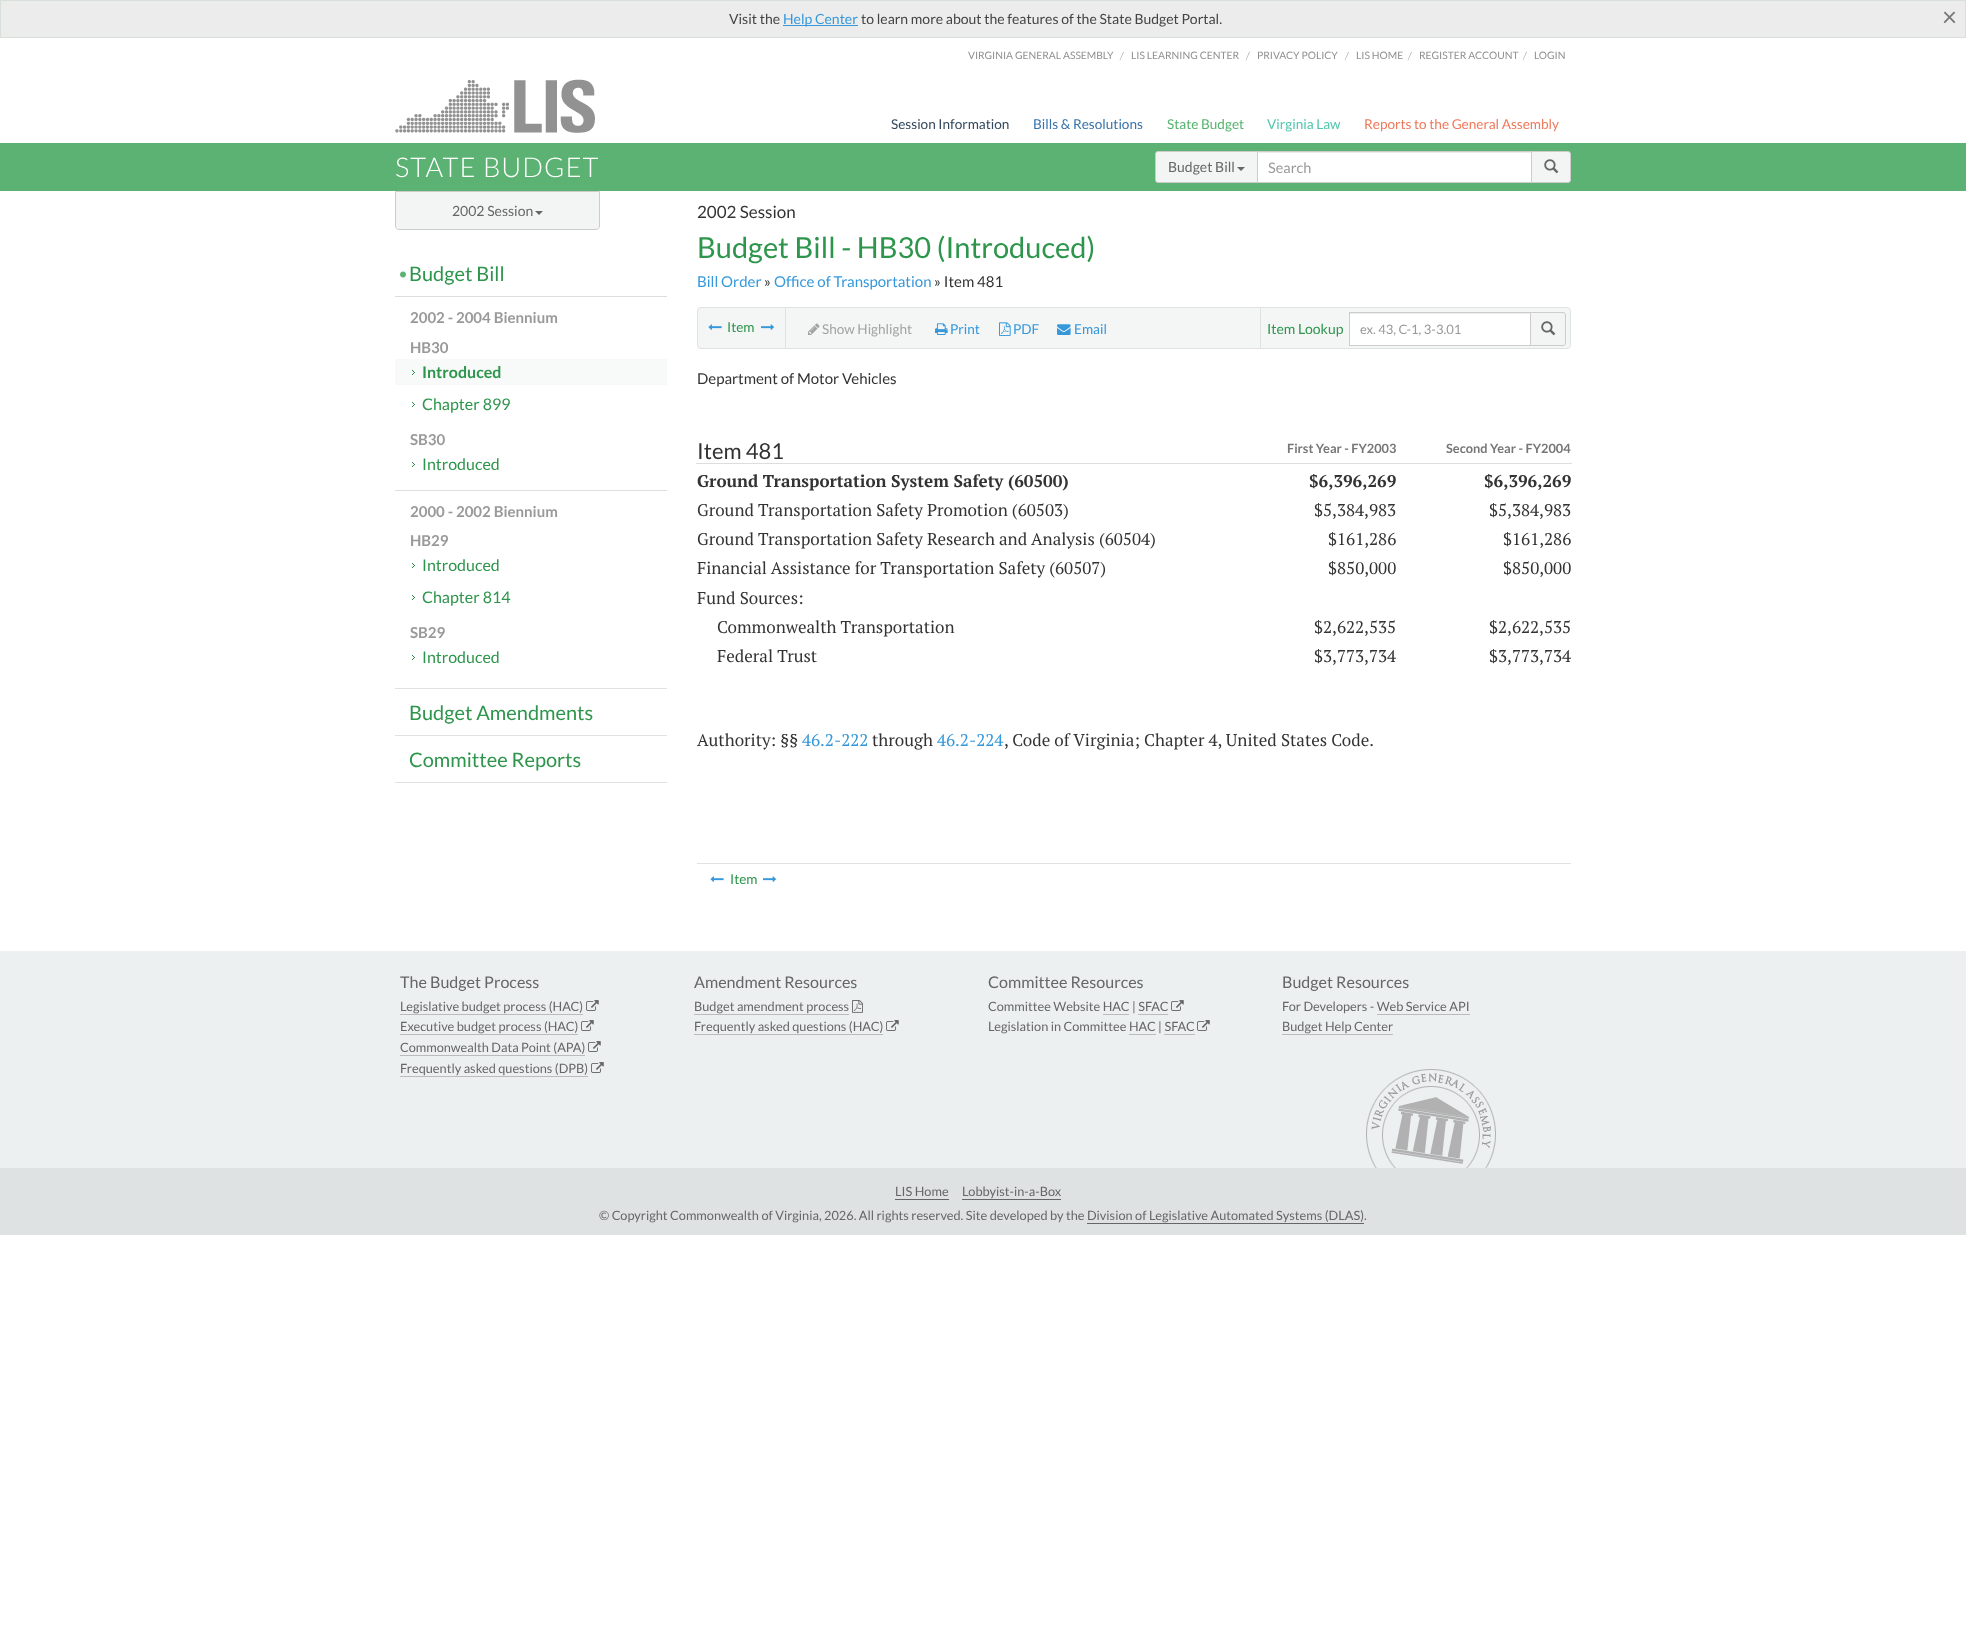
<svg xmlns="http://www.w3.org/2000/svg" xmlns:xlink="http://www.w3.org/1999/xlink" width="1966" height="1637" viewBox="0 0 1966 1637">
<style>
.cls-1{font:14px Lato;fill:#444444}
.cls-2{font:14px Lato;fill:#3498db}
.cls-3{font:26px Lato;fill:#777777}
.cls-4{font:10.25px Lato;fill:#8f9090}
.cls-5{font:10.25px PT Serif;fill:#8f9090}
.cls-6{font:13.6px Lato;fill:#34495e}
.cls-7{font:13.6px Lato;fill:#3774ac}
.cls-8{font:13.6px Lato;fill:#57b36f}
.cls-9{font:13.6px Lato;fill:#4fc6ac}
.cls-10{font:13.6px Lato;fill:#ef795a}
.cls-11{font:300 27.25px Lato;letter-spacing:1px;fill:#ffffff}
.cls-12{font:14px Lato;fill:#666666}
.cls-13{font:14.5px Lato;fill:#999999}
.cls-14{font:20px Lato;fill:#2e954c}
.cls-15{font:bold 15px Lato;fill:#999999}
.cls-16{font:bold 16px Lato;fill:#2e954c}
.cls-17{font:16px Lato;fill:#2e954c}
.cls-18{font:17px Lato;fill:#333333}
.cls-19{font:29px Lato;fill:#2e954c}
.cls-20{font:15px Lato;fill:#3498db}
.cls-21{font:15px Lato;fill:#333333}
.cls-22{font:13.6px Lato;fill:#2e954c}
.cls-23{font:13.6px Lato;fill:#a3a3a3}
.cls-24{font:13.6px Lato;fill:#3498db}
.cls-25{font:14px Lato;fill:#2e954c}
.cls-26{font:13px Lato;fill:#999999}
.cls-27{font:22px Lato;fill:#333333}
.cls-28{font:bold 12.75px Lato;fill:#777777}
.cls-29{font:bold 17px PT Serif;fill:#333333}
.cls-30{font:17px PT Serif;fill:#333333}
.cls-31{font:17px PT Serif;fill:#3498db}
.cls-32{font:16.1px Lato;fill:#666666}
.cls-33{font:12.75px Lato;fill:#666666}
</style>
<rect width="100%" height="100%" fill="#ffffff"/>
<rect fill="#ececec" stroke="#d9e0da" x="0.5" y="0.5" width="1965" height="37"/>
<rect fill="#3498db" x="783" y="25" width="75" height="1"/>
<image xlink:href="image0.png" x="395" y="79" width="200" height="54"/>
<rect fill="#5bb272" x="0" y="143" width="1966" height="48"/>
<rect fill="#ffffff" x="1258" y="153" width="273" height="29"/>
<rect fill="#ececec" x="1258" y="152" width="273" height="1"/>
<rect fill="none" stroke="#cccccc" x="1257.5" y="151.5" width="274" height="31"/>
<path fill="#f3f5f5" stroke="#cccccc" d="M1158 151.5H1257.5V182.5H1158C1156.5 182.5 1155.5 181.5 1155.5 180V154C1155.5 152.5 1156.5 151.5 1158 151.5Z"/>
<path fill="#666666" d="M1237 167H1245L1241 171Z"/>
<path fill="#f3f5f5" stroke="#cccccc" d="M1531.5 151.5H1568C1569.5 151.5 1570.5 152.5 1570.5 154V180C1570.5 181.5 1569.5 182.5 1568 182.5H1531.5Z"/>
<image xlink:href="image1.png" x="1544" y="159" width="15" height="15"/>
<path fill="#f3f5f5" stroke="#cccccc" d="M395.5 191.5H599.5V226C599.5 228 598 229.5 596 229.5H399C397 229.5 395.5 228 395.5 226Z"/>
<path fill="#666666" d="M535 211H543L539 215Z"/>
<rect fill="#dee2e3" x="395" y="688" width="272" height="1"/>
<image xlink:href="image2.png" x="400" y="271" width="6" height="7"/>
<rect fill="#dddddd" x="395" y="296" width="272" height="1"/>
<rect fill="#f8f9f9" x="395" y="359" width="272" height="26"/>
<image xlink:href="image3.png" x="412" y="370" width="3" height="5"/>
<image xlink:href="image4.png" x="412" y="402" width="3" height="5"/>
<image xlink:href="image4.png" x="412" y="462" width="3" height="5"/>
<rect fill="#dddddd" x="395" y="490" width="272" height="1"/>
<image xlink:href="image4.png" x="412" y="563" width="3" height="5"/>
<image xlink:href="image4.png" x="412" y="595" width="3" height="5"/>
<image xlink:href="image4.png" x="412" y="655" width="3" height="5"/>
<rect fill="#dee2e3" x="395" y="735" width="272" height="1"/>
<rect fill="#dee2e3" x="395" y="782" width="272" height="1"/>
<rect fill="#f4f5f5" stroke="#dee2e3" x="697.5" y="307.5" width="873" height="41" rx="3.5"/>
<rect fill="#dee2e3" x="785" y="308" width="1" height="40"/>
<image xlink:href="image5.png" x="708" y="324" width="14" height="6"/>
<image xlink:href="image6.png" x="761" y="324" width="14" height="6"/>
<image xlink:href="image7.png" x="808" y="323" width="12" height="12"/>
<image xlink:href="image8.png" x="935" y="323" width="13" height="12"/>
<image xlink:href="image9.png" x="999" y="322" width="12" height="14"/>
<image xlink:href="image10.png" x="1057" y="324" width="14" height="11"/>
<rect fill="#dee2e3" x="1260" y="308" width="1" height="40"/>
<rect fill="#ffffff" x="1350" y="314" width="180" height="31"/>
<rect fill="#ececec" x="1350" y="313" width="180" height="1"/>
<rect fill="none" stroke="#cccccc" x="1349.5" y="312.5" width="181" height="33"/>
<path fill="#f3f5f5" stroke="#cccccc" d="M1530.5 312.5H1563C1564.5 312.5 1565.5 313.5 1565.5 315V343C1565.5 344.5 1564.5 345.5 1563 345.5H1530.5Z"/>
<image xlink:href="image1.png" x="1541" y="321" width="15" height="15"/>
<rect fill="#dddddd" x="696" y="463" width="876" height="1"/>
<rect fill="#dee2e3" x="697" y="863" width="874" height="1"/>
<image xlink:href="image11.png" x="710" y="876" width="14" height="6"/>
<image xlink:href="image12.png" x="763" y="876" width="14" height="6"/>
<rect fill="#ecf0f1" x="0" y="951" width="1966" height="217"/>
<rect fill="#bbbbbb" x="400" y="1014" width="183" height="1"/>
<image xlink:href="image13.png" x="586" y="1000" width="13" height="11"/>
<rect fill="#bbbbbb" x="400" y="1034" width="178" height="1"/>
<image xlink:href="image13.png" x="581" y="1020" width="13" height="11"/>
<rect fill="#bbbbbb" x="400" y="1055" width="185" height="1"/>
<image xlink:href="image13.png" x="588" y="1041" width="13" height="11"/>
<rect fill="#bbbbbb" x="400" y="1076" width="188" height="1"/>
<image xlink:href="image13.png" x="591" y="1062" width="13" height="11"/>
<rect fill="#bbbbbb" x="694" y="1014" width="155" height="1"/>
<image xlink:href="image14.png" x="852" y="1000" width="11" height="13"/>
<rect fill="#bbbbbb" x="694" y="1034" width="189" height="1"/>
<image xlink:href="image13.png" x="886" y="1020" width="13" height="11"/>
<image xlink:href="image13.png" x="1171" y="1000" width="13" height="11"/>
<rect fill="#bbbbbb" x="1103" y="1014" width="26" height="1"/>
<rect fill="#bbbbbb" x="1138" y="1014" width="30" height="1"/>
<image xlink:href="image13.png" x="1197" y="1020" width="13" height="11"/>
<rect fill="#bbbbbb" x="1129" y="1034" width="27" height="1"/>
<rect fill="#bbbbbb" x="1164" y="1034" width="31" height="1"/>
<rect fill="#bbbbbb" x="1377" y="1014" width="93" height="1"/>
<rect fill="#bbbbbb" x="1282" y="1034" width="111" height="1"/>
<image xlink:href="image15.png" x="1366" y="1069" width="130" height="99"/>
<rect fill="#dfe2e3" x="0" y="1168" width="1966" height="67"/>
<rect fill="#666666" x="895" y="1199" width="54" height="1"/>
<rect fill="#666666" x="962" y="1199" width="99" height="1"/>
<rect fill="#666666" x="1087" y="1223" width="277" height="1"/>
<text class="cls-1" x="729" y="24">Visit the</text>
<text class="cls-2" x="783" y="24">Help Center</text>
<text class="cls-1" x="861" y="24">to learn more about the features of the State Budget Portal.</text>
<text class="cls-3" x="1942" y="26">×</text>
<text class="cls-4" x="968" y="59">VIRGINIA GENERAL ASSEMBLY</text>
<text class="cls-5" x="1120" y="59">/</text>
<text class="cls-4" x="1131" y="59">LIS LEARNING CENTER</text>
<text class="cls-5" x="1246" y="59">/</text>
<text class="cls-4" x="1257" y="59">PRIVACY POLICY</text>
<text class="cls-5" x="1345" y="59">/</text>
<text class="cls-4" x="1356" y="59">LIS HOME</text>
<text class="cls-5" x="1408" y="59">/</text>
<text class="cls-4" x="1419" y="59">REGISTER ACCOUNT</text>
<text class="cls-5" x="1523" y="59">/</text>
<text class="cls-4" x="1534" y="59">LOGIN</text>
<text class="cls-6" x="891" y="129">Session Information</text>
<text class="cls-7" x="1033" y="129">Bills &amp; Resolutions</text>
<text class="cls-8" x="1167" y="129">State Budget</text>
<text class="cls-9" x="1267" y="129">Virginia Law</text>
<text class="cls-10" x="1364" y="129">Reports to the General Assembly</text>
<text class="cls-11" x="395" y="177">STATE BUDGET</text>
<text class="cls-12" x="1168" y="172">Budget Bill</text>
<text class="cls-13" x="1268" y="173">Search</text>
<text class="cls-12" x="452" y="216">2002 Session</text>
<text class="cls-14" x="409" y="281">Budget Bill</text>
<text class="cls-15" x="410" y="323">2002 - 2004 Biennium</text>
<text class="cls-15" x="410" y="353">HB30</text>
<text class="cls-16" x="422" y="378">Introduced</text>
<text class="cls-17" x="422" y="410">Chapter 899</text>
<text class="cls-15" x="410" y="445">SB30</text>
<text class="cls-17" x="422" y="470">Introduced</text>
<text class="cls-15"><tspan x="410" y="517">2000 - 2002 Biennium</tspan><tspan x="410" y="546">HB29</tspan></text>
<text class="cls-17" x="422" y="571">Introduced</text>
<text class="cls-17" x="422" y="603">Chapter 814</text>
<text class="cls-15" x="410" y="638">SB29</text>
<text class="cls-17" x="422" y="663">Introduced</text>
<text class="cls-14" x="409" y="720">Budget Amendments</text>
<text class="cls-14" x="409" y="767">Committee Reports</text>
<text class="cls-18" x="697" y="218">2002 Session</text>
<text class="cls-19" x="697" y="258">Budget Bill - HB30 (Introduced)</text>
<text class="cls-20" x="697" y="287">Bill Order</text>
<text class="cls-21" x="764" y="287">»</text>
<text class="cls-20" x="774" y="287">Office of Transportation</text>
<text class="cls-21" x="934" y="287">» Item 481</text>
<text class="cls-22" x="727" y="332">Item</text>
<text class="cls-23" x="822" y="334">Show Highlight</text>
<text class="cls-24" x="950" y="334">Print</text>
<text class="cls-24" x="1013" y="334">PDF</text>
<text class="cls-24" x="1074" y="334">Email</text>
<text class="cls-25" x="1267" y="334">Item Lookup</text>
<text class="cls-26" x="1360" y="334">ex. 43, C-1, 3-3.01</text>
<text class="cls-21" x="697" y="384">Department of Motor Vehicles</text>
<text class="cls-27" x="697" y="459">Item 481</text>
<text class="cls-28" x="1287" y="453">First Year - FY2003</text>
<text class="cls-28" x="1446" y="453">Second Year - FY2004</text>
<text class="cls-29" x="697" y="487">Ground Transportation System Safety (60500)</text>
<text class="cls-29" x="1309" y="487">$6,396,269</text>
<text class="cls-29" x="1484" y="487">$6,396,269</text>
<text class="cls-30" x="697" y="516">Ground Transportation Safety Promotion (60503)</text>
<text class="cls-30" x="1314" y="516">$5,384,983</text>
<text class="cls-30" x="1489" y="516">$5,384,983</text>
<text class="cls-30" x="697" y="545">Ground Transportation Safety Research and Analysis (60504)</text>
<text class="cls-30" x="1328" y="545">$161,286</text>
<text class="cls-30" x="1503" y="545">$161,286</text>
<text class="cls-30" x="697" y="574">Financial Assistance for Transportation Safety (60507)</text>
<text class="cls-30" x="1328" y="574">$850,000</text>
<text class="cls-30" x="1503" y="574">$850,000</text>
<text class="cls-30" x="697" y="604">Fund Sources:</text>
<text class="cls-30" x="717" y="633">Commonwealth Transportation</text>
<text class="cls-30" x="1314" y="633">$2,622,535</text>
<text class="cls-30" x="1489" y="633">$2,622,535</text>
<text class="cls-30" x="717" y="662">Federal Trust</text>
<text class="cls-30" x="1314" y="662">$3,773,734</text>
<text class="cls-30" x="1489" y="662">$3,773,734</text>
<text class="cls-30" x="697" y="746">Authority: §§</text>
<text class="cls-31" x="802" y="746">46.2-222</text>
<text class="cls-30" x="872" y="746">through</text>
<text class="cls-31" x="937" y="746">46.2-224</text>
<text class="cls-30" x="1004" y="746">, Code of Virginia; Chapter 4, United States Code.</text>
<text class="cls-22" x="730" y="884">Item</text>
<text class="cls-32" x="400" y="988">The Budget Process</text>
<text class="cls-33"><tspan x="400" y="1011">Legislative budget process (HAC)</tspan><tspan x="400" y="1031">Executive budget process (HAC)</tspan><tspan x="400" y="1052">Commonwealth Data Point (APA)</tspan><tspan x="400" y="1073">Frequently asked questions (DPB)</tspan></text>
<text class="cls-32" x="694" y="988">Amendment Resources</text>
<text class="cls-33"><tspan x="694" y="1011">Budget amendment process</tspan><tspan x="694" y="1031">Frequently asked questions (HAC)</tspan></text>
<text class="cls-32" x="988" y="988">Committee Resources</text>
<text class="cls-33"><tspan x="988" y="1011">Committee Website HAC | SFAC</tspan><tspan x="988" y="1031">Legislation in Committee HAC | SFAC</tspan></text>
<text class="cls-32" x="1282" y="988">Budget Resources</text>
<text class="cls-33"><tspan x="1282" y="1011">For Developers - Web Service API</tspan><tspan x="1282" y="1031">Budget Help Center</tspan></text>
<text class="cls-33" x="895" y="1196">LIS Home</text>
<text class="cls-33" x="962" y="1196">Lobbyist-in-a-Box</text>
<text class="cls-33" x="599" y="1220">© Copyright Commonwealth of Virginia, 2026. All rights reserved. Site developed by the Division of Legislative Automated Systems (DLAS).</text>
</svg>
